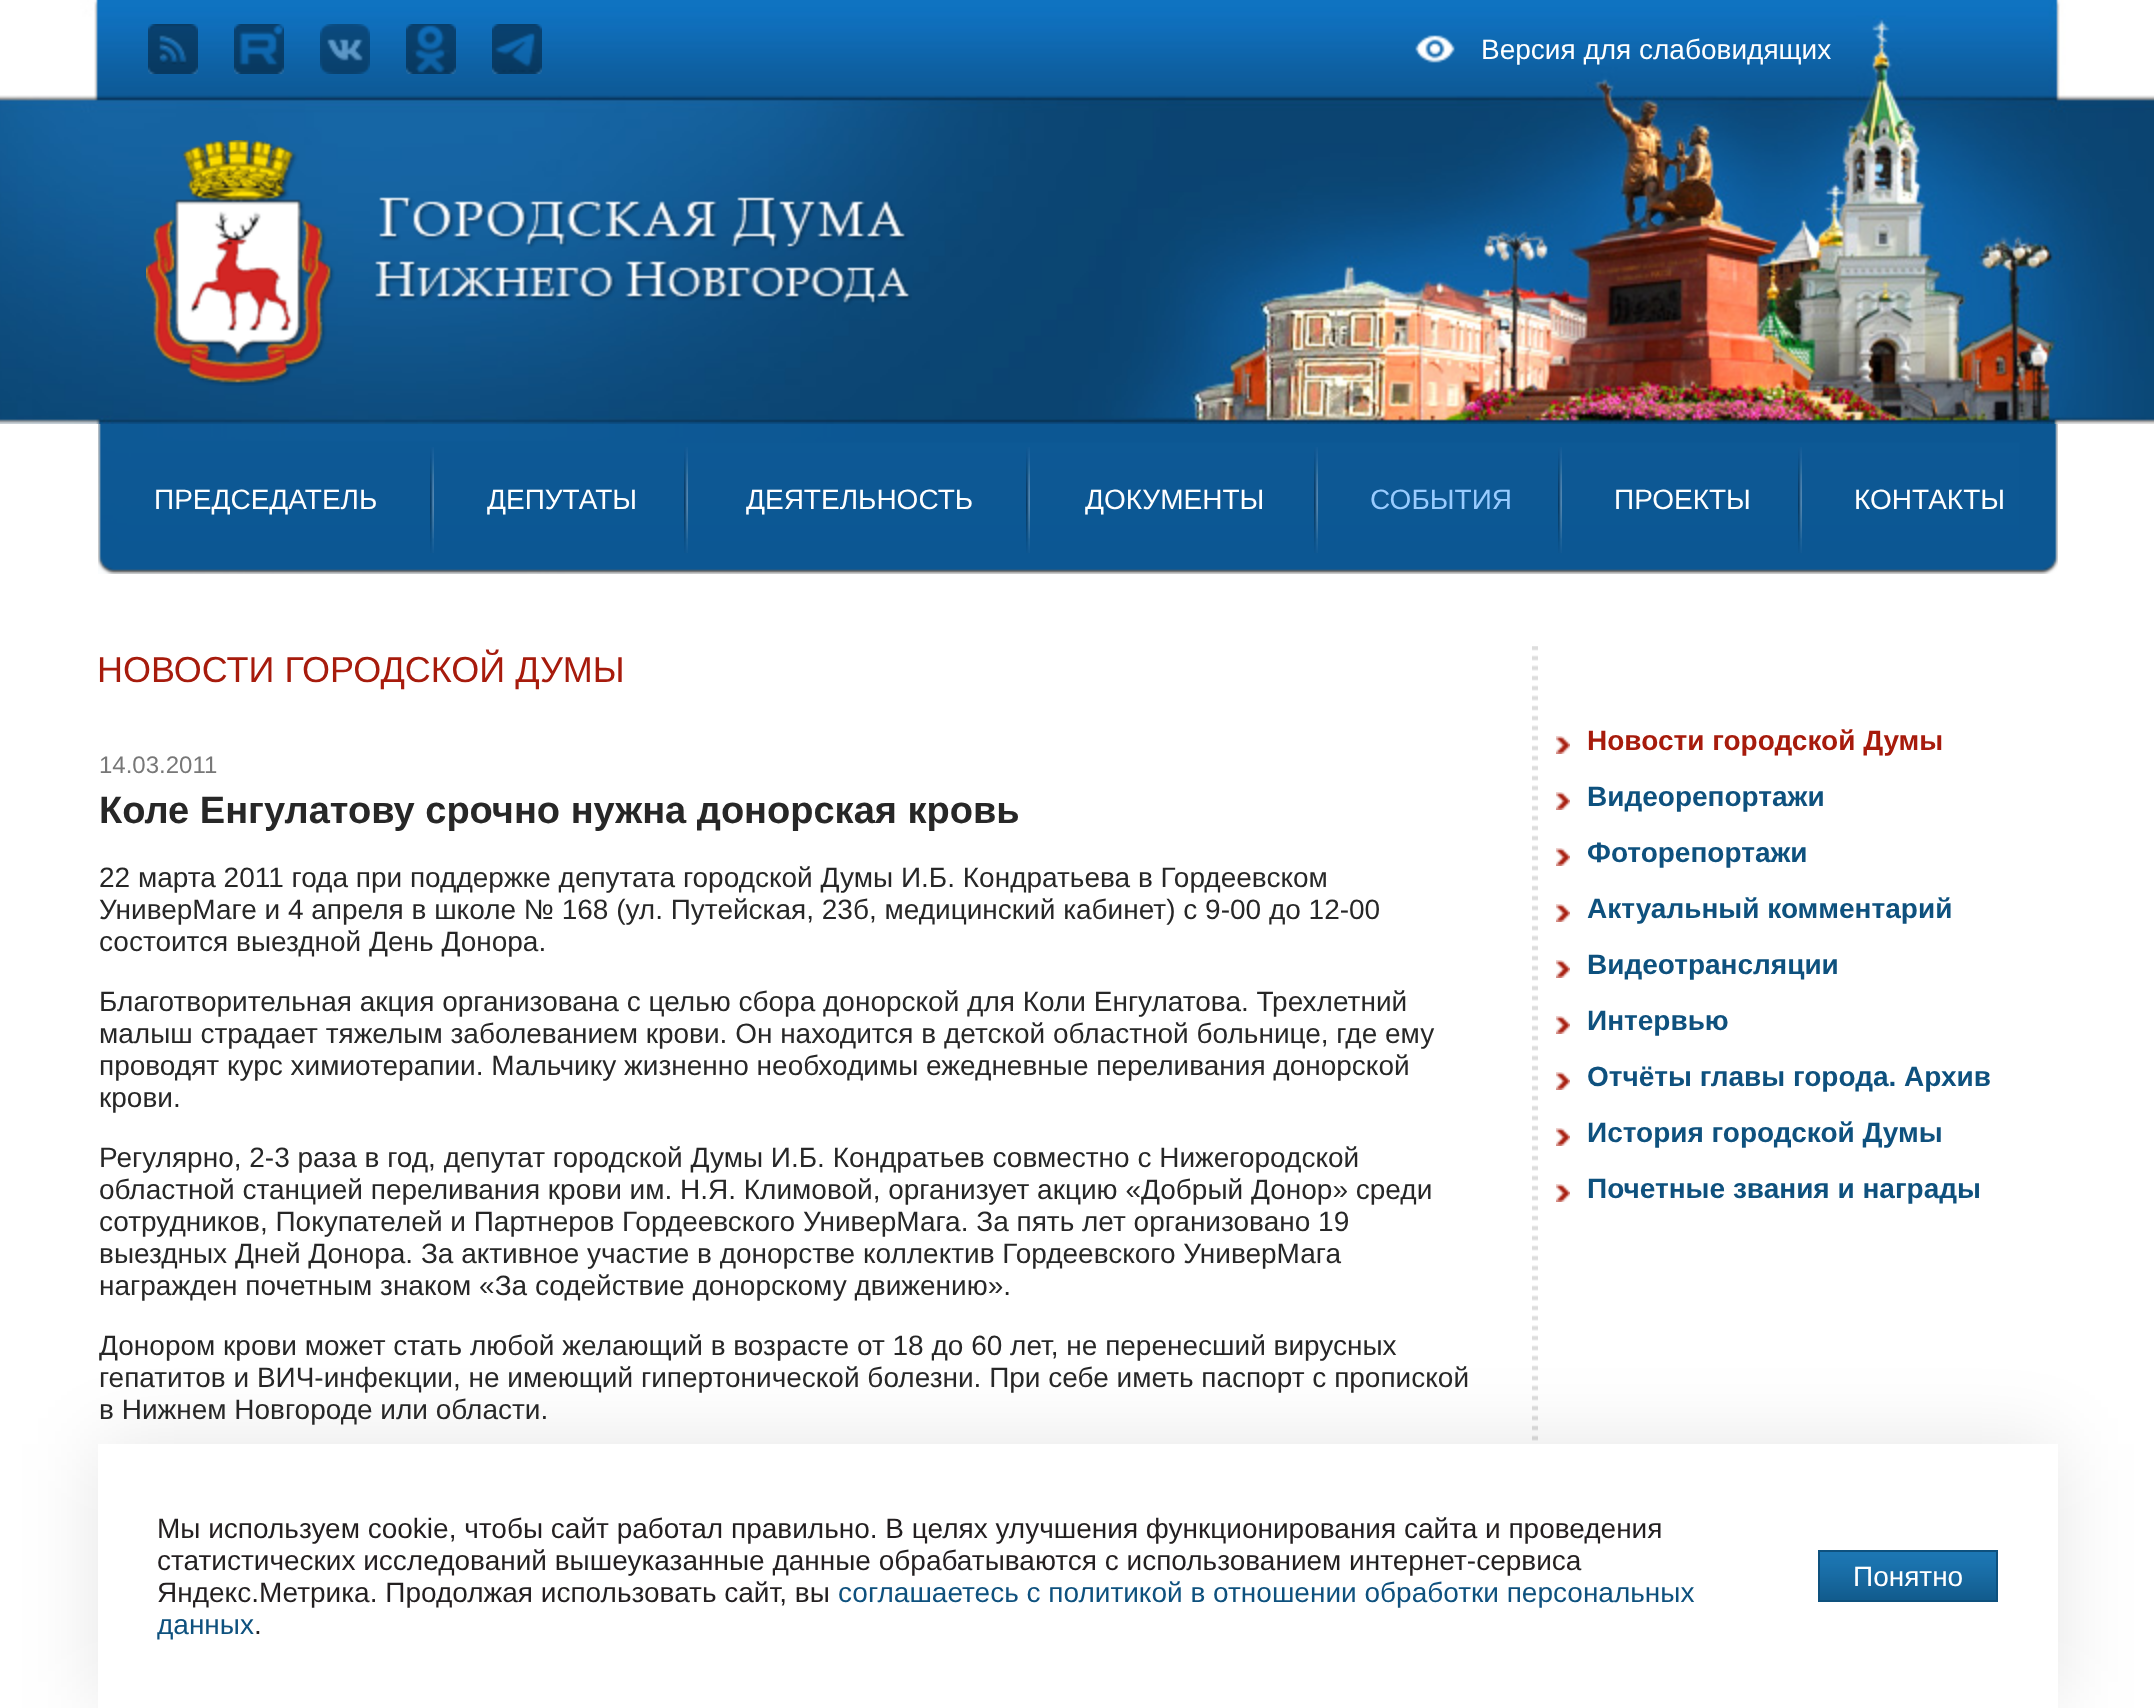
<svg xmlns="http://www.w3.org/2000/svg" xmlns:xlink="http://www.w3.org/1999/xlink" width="2154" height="1708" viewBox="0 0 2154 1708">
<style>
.cls-1{font:28px Liberation Sans;fill:#ffffff}
.cls-2{font:28px Liberation Sans;fill:#99ccff}
.cls-3{font:36px Liberation Sans;fill:#a71b0c}
.cls-4{font:24px Liberation Sans;fill:#777777}
.cls-5{font:bold 38px Liberation Sans;fill:#272727}
.cls-6{font:28px Liberation Sans;fill:#272727}
.cls-7{font:bold 28px Liberation Sans;fill:#a71b0c}
.cls-8{font:bold 28px Liberation Sans;fill:#0e517e}
.cls-9{font:28px Liberation Sans;fill:#231f20}
.cls-10{font:28px Liberation Sans;fill:#0e517e}
</style>
<rect width="100%" height="100%" fill="#ffffff"/>
<image xlink:href="image0.png" x="0" y="0" width="2154" height="424"/>
<image xlink:href="image1.png" x="148" y="24" width="50" height="50"/>
<image xlink:href="image2.png" x="234" y="24" width="50" height="50"/>
<image xlink:href="image3.png" x="320" y="24" width="50" height="50"/>
<image xlink:href="image4.png" x="406" y="24" width="50" height="50"/>
<image xlink:href="image5.png" x="492" y="24" width="50" height="50"/>
<image xlink:href="image6.png" x="1415" y="35" width="40" height="28"/>
<image xlink:href="image7.png" x="146" y="140" width="766" height="246"/>
<image xlink:href="image8.png" x="98" y="424" width="1960" height="150"/>
<image xlink:href="image9.png" x="430" y="447" width="4" height="106"/>
<image xlink:href="image9.png" x="684" y="447" width="4" height="106"/>
<image xlink:href="image9.png" x="1026" y="447" width="4" height="106"/>
<image xlink:href="image9.png" x="1314" y="447" width="4" height="106"/>
<image xlink:href="image9.png" x="1558" y="447" width="4" height="106"/>
<image xlink:href="image9.png" x="1798" y="447" width="4" height="106"/>
<image xlink:href="image10.png" x="1532" y="646" width="6" height="798"/>
<image xlink:href="image11.png" x="1556" y="736" width="14" height="18"/>
<image xlink:href="image11.png" x="1556" y="792" width="14" height="18"/>
<image xlink:href="image11.png" x="1556" y="848" width="14" height="18"/>
<image xlink:href="image11.png" x="1556" y="904" width="14" height="18"/>
<image xlink:href="image11.png" x="1556" y="960" width="14" height="18"/>
<image xlink:href="image11.png" x="1556" y="1016" width="14" height="18"/>
<image xlink:href="image11.png" x="1556" y="1072" width="14" height="18"/>
<image xlink:href="image11.png" x="1556" y="1128" width="14" height="18"/>
<image xlink:href="image11.png" x="1556" y="1184" width="14" height="18"/>
<rect fill="#000000" fill-opacity="0.1" filter="blur(40px)" x="98" y="1444" width="1960" height="264"/>
<rect fill="#ffffff" x="98" y="1444" width="1960" height="264"/>
<image xlink:href="image12.png" x="1820" y="1552" width="176" height="48"/>
<rect fill="none" stroke="#0e517e" stroke-width="2" x="1819" y="1551" width="178" height="50"/>
<text class="cls-1" x="1481" y="59">Версия для слабовидящих</text>
<text class="cls-1" x="154" y="509">ПРЕДСЕДАТЕЛЬ</text>
<text class="cls-1" x="487" y="509">ДЕПУТАТЫ</text>
<text class="cls-1" x="746" y="509">ДЕЯТЕЛЬНОСТЬ</text>
<text class="cls-1" x="1085" y="509">ДОКУМЕНТЫ</text>
<text class="cls-2" x="1370" y="509">СОБЫТИЯ</text>
<text class="cls-1" x="1614" y="509">ПРОЕКТЫ</text>
<text class="cls-1" x="1854" y="509">КОНТАКТЫ</text>
<text class="cls-3" x="97" y="682">НОВОСТИ ГОРОДСКОЙ ДУМЫ</text>
<text class="cls-4" x="99" y="773">14.03.2011</text>
<text class="cls-5" x="99" y="823">Коле Енгулатову срочно нужна донорская кровь</text>
<text class="cls-6"><tspan x="99" y="887">22 марта 2011 года при поддержке депутата городской Думы И.Б. Кондратьева в Гордеевском</tspan><tspan x="99" y="919">УниверМаге и 4 апреля в школе № 168 (ул. Путейская, 23б, медицинский кабинет) с 9-00 до 12-00</tspan><tspan x="99" y="951">состоится выездной День Донора.</tspan></text>
<text class="cls-6"><tspan x="99" y="1011">Благотворительная акция организована с целью сбора донорской для Коли Енгулатова. Трехлетний</tspan><tspan x="99" y="1043">малыш страдает тяжелым заболеванием крови. Он находится в детской областной больнице, где ему</tspan><tspan x="99" y="1075">проводят курс химиотерапии. Мальчику жизненно необходимы ежедневные переливания донорской</tspan><tspan x="99" y="1107">крови.</tspan></text>
<text class="cls-6"><tspan x="99" y="1167">Регулярно, 2-3 раза в год, депутат городской Думы И.Б. Кондратьев совместно с Нижегородской</tspan><tspan x="99" y="1199">областной станцией переливания крови им. Н.Я. Климовой, организует акцию «Добрый Донор» среди</tspan><tspan x="99" y="1231">сотрудников, Покупателей и Партнеров Гордеевского УниверМага. За пять лет организовано 19</tspan><tspan x="99" y="1263">выездных Дней Донора. За активное участие в донорстве коллектив Гордеевского УниверМага</tspan><tspan x="99" y="1295">награжден почетным знаком «За содействие донорскому движению».</tspan></text>
<text class="cls-6"><tspan x="99" y="1355">Донором крови может стать любой желающий в возрасте от 18 до 60 лет, не перенесший вирусных</tspan><tspan x="99" y="1387">гепатитов и ВИЧ-инфекции, не имеющий гипертонической болезни. При себе иметь паспорт с пропиской</tspan><tspan x="99" y="1419">в Нижнем Новгороде или области.</tspan></text>
<text class="cls-7" x="1587" y="750">Новости городской Думы</text>
<text class="cls-8" x="1587" y="806">Видеорепортажи</text>
<text class="cls-8" x="1587" y="862">Фоторепортажи</text>
<text class="cls-8" x="1587" y="918">Актуальный комментарий</text>
<text class="cls-8" x="1587" y="974">Видеотрансляции</text>
<text class="cls-8" x="1587" y="1030">Интервью</text>
<text class="cls-8" x="1587" y="1086">Отчёты главы города. Архив</text>
<text class="cls-8" x="1587" y="1142">История городской Думы</text>
<text class="cls-8" x="1587" y="1198">Почетные звания и награды</text>
<text class="cls-9"><tspan x="157" y="1538">Мы используем cookie, чтобы сайт работал правильно. В целях улучшения функционирования сайта и проведения</tspan><tspan x="157" y="1570">статистических исследований вышеуказанные данные обрабатываются с использованием интернет-сервиса</tspan><tspan x="157" y="1602">Яндекс.Метрика. Продолжая использовать сайт, вы</tspan></text>
<text class="cls-10" x="838" y="1602">соглашаетесь с политикой в отношении обработки персональных</text>
<text class="cls-10" x="157" y="1634">данных</text>
<text class="cls-9" x="254" y="1634">.</text>
<text class="cls-1" x="1853" y="1586">Понятно</text>
</svg>
